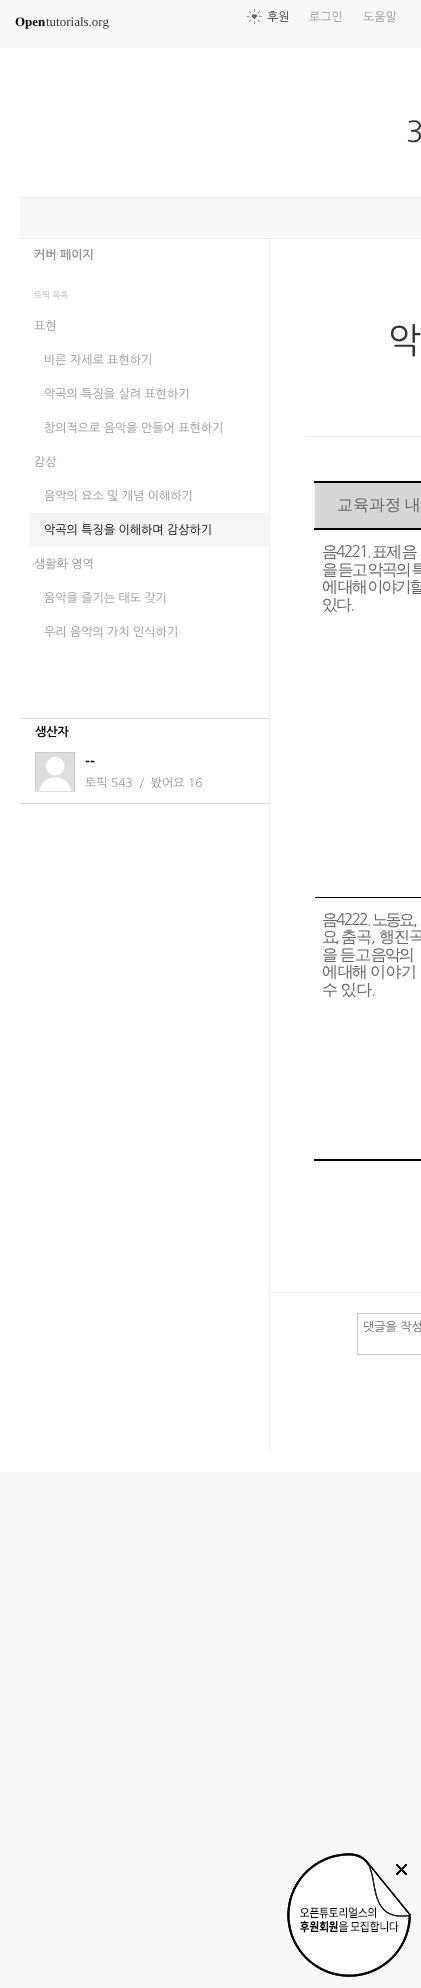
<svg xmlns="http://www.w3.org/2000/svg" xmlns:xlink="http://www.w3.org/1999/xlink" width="421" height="1988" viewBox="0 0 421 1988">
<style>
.cls-1{font:bold 13px Liberation Serif;fill:#000000}
.cls-2{font:13px Liberation Serif;fill:#333333}
.cls-3{font:12px NanumGothic;fill:#333333}
.cls-4{font:12px NanumGothic;fill:#999999}
.cls-5{font:29px NanumGothic;fill:#333333}
.cls-6{font:bold 12px NanumGothic;fill:#999999}
.cls-7{font:8.5px NanumGothic;fill:#bbbbbb}
.cls-8{font:12px NanumGothic;fill:#000000}
.cls-9{font:bold 12px NanumGothic;fill:#000000}
.cls-10{font:bold 14px NanumGothic;fill:#000000}
.cls-11{font:35px NanumGothic;fill:#333333}
.cls-12{font:500 16px WenQuanYi Zen Hei;fill:#666666}
.cls-13{font:500 16px WenQuanYi Zen Hei;letter-spacing:-2px;fill:#666666}
.cls-14{font:16px NanumGothic;letter-spacing:-2px;fill:#666666}
.cls-15{font:500 16px WenQuanYi Zen Hei;letter-spacing:-2.5px;fill:#666666}
.cls-16{font:16px NanumGothic;letter-spacing:-2.5px;fill:#666666}
.cls-17{font:500 16px WenQuanYi Zen Hei;letter-spacing:-1px;fill:#666666}
.cls-18{font:16px NanumGothic;letter-spacing:-1px;fill:#666666}
.cls-19{font:500 16px WenQuanYi Zen Hei;letter-spacing:-0.5px;fill:#666666}
.cls-20{font:16px NanumGothic;letter-spacing:-0.5px;fill:#666666}
.cls-21{font:12px NanumGothic;fill:#666666}
</style>
<rect width="100%" height="100%" fill="#f8f8f8"/>
<image xlink:href="image0.png" x="246" y="9" width="16" height="15"/>
<rect fill="#ffffff" x="0" y="48" width="421" height="1424"/>
<rect fill="#f8f8f8" x="20" y="198" width="401" height="40"/>
<rect fill="#eeeeee" x="20" y="197" width="401" height="1"/>
<rect fill="#eeeeee" x="20" y="238" width="401" height="1"/>
<rect fill="#f2f2f2" x="269" y="239" width="1" height="1213"/>
<rect fill="#f6f6f6" x="30" y="513" width="239" height="34"/>
<rect fill="#dddddd" x="20" y="718" width="250" height="1"/>
<rect fill="#dddddd" x="20" y="803" width="250" height="1"/>
<image xlink:href="image1.png" x="35" y="752" width="40" height="40"/>
<rect fill="#eeeeee" x="305" y="436" width="116" height="1"/>
<rect fill="#d6d6d6" x="315" y="483" width="106" height="45"/>
<rect fill="#000000" x="314" y="481" width="107" height="2"/>
<rect fill="#000000" x="314" y="528" width="107" height="2"/>
<rect fill="#000000" x="315" y="897" width="106" height="1"/>
<rect fill="#000000" x="314" y="1159" width="107" height="2"/>
<rect fill="#f3f3f3" x="270" y="1292" width="151" height="1"/>
<rect fill="none" stroke="#cccccc" x="357.5" y="1313.5" width="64" height="41"/>
<image xlink:href="image2.png" x="287" y="1853" width="124" height="124"/>
<image xlink:href="image3.png" x="396" y="1864" width="11" height="11"/>
<text class="cls-1" x="15" y="26">Open</text>
<text class="cls-2" x="46" y="26">tutorials.org</text>
<text class="cls-3" x="267" y="21">후원</text>
<text class="cls-4" x="309" y="21">로그인</text>
<text class="cls-4" x="363" y="21">도움말</text>
<text class="cls-5" x="406" y="142">3</text>
<text class="cls-6" x="34" y="259">커버 페이지</text>
<text class="cls-7" x="34" y="298">토픽 목록</text>
<text class="cls-4" x="34" y="330">표현</text>
<text class="cls-4" x="44" y="364">바른 자세로 표현하기</text>
<text class="cls-4" x="44" y="398">악곡의 특징을 살려 표현하기</text>
<text class="cls-4" x="44" y="432">창의적으로 음악을 만들어 표현하기</text>
<text class="cls-4" x="34" y="466">감상</text>
<text class="cls-4" x="44" y="500">음악의 요소 및 개념 이해하기</text>
<text class="cls-8" x="44" y="534">악곡의 특징을 이해하며 감상하기</text>
<text class="cls-4" x="34" y="568">생활화 영역</text>
<text class="cls-4" x="44" y="602">음악을 즐기는 태도 갖기</text>
<text class="cls-4" x="44" y="636">우리 음악의 가치 인식하기</text>
<text class="cls-9" x="35" y="736">생산자</text>
<text class="cls-10" x="85" y="767">--</text>
<text class="cls-4" xml:space="preserve" x="85" y="787">토픽 543  /  봤어요 16</text>
<text class="cls-11" x="388" y="353">악</text>
<text class="cls-12" x="337" y="510" word-spacing="-1">교육과정 내</text>
<text class="cls-13" x="322" y="557">음</text>
<text class="cls-14" x="336" y="557">4221.</text>
<text class="cls-13" x="372" y="557" word-spacing="-1">표제 음</text>
<text class="cls-13"><tspan x="322" y="575" word-spacing="-1">을 듣고 악곡의 특</tspan><tspan x="322" y="592" word-spacing="-1">에 대해 이야기할</tspan><tspan x="322" y="610">있다</tspan></text>
<text class="cls-14" x="350" y="610">.</text>
<text class="cls-13" x="322" y="925">음</text>
<text class="cls-14" x="336" y="925">4222.</text>
<text class="cls-15" x="372" y="925">노동요</text>
<text class="cls-16" x="413" y="925">,</text>
<text class="cls-15" x="322" y="942">요</text>
<text class="cls-16" x="335" y="942">,</text>
<text class="cls-17" x="341" y="942">춤곡</text>
<text class="cls-18" x="371" y="942">,</text>
<text class="cls-17" x="379" y="942" word-spacing="-1">행진곡</text>
<text class="cls-17" x="322" y="960" word-spacing="-1">을 듣</text>
<text class="cls-13" x="355" y="960" word-spacing="-1">고 음악의</text>
<text class="cls-13" x="322" y="977" word-spacing="-1">에 대해</text>
<text class="cls-19" x="370" y="977" word-spacing="-1">이야기</text>
<text class="cls-19" x="322" y="995" word-spacing="-1">수 있다</text>
<text class="cls-20" x="371" y="995">.</text>
<text class="cls-21" x="363" y="1331">댓글을 작성</text>
</svg>
